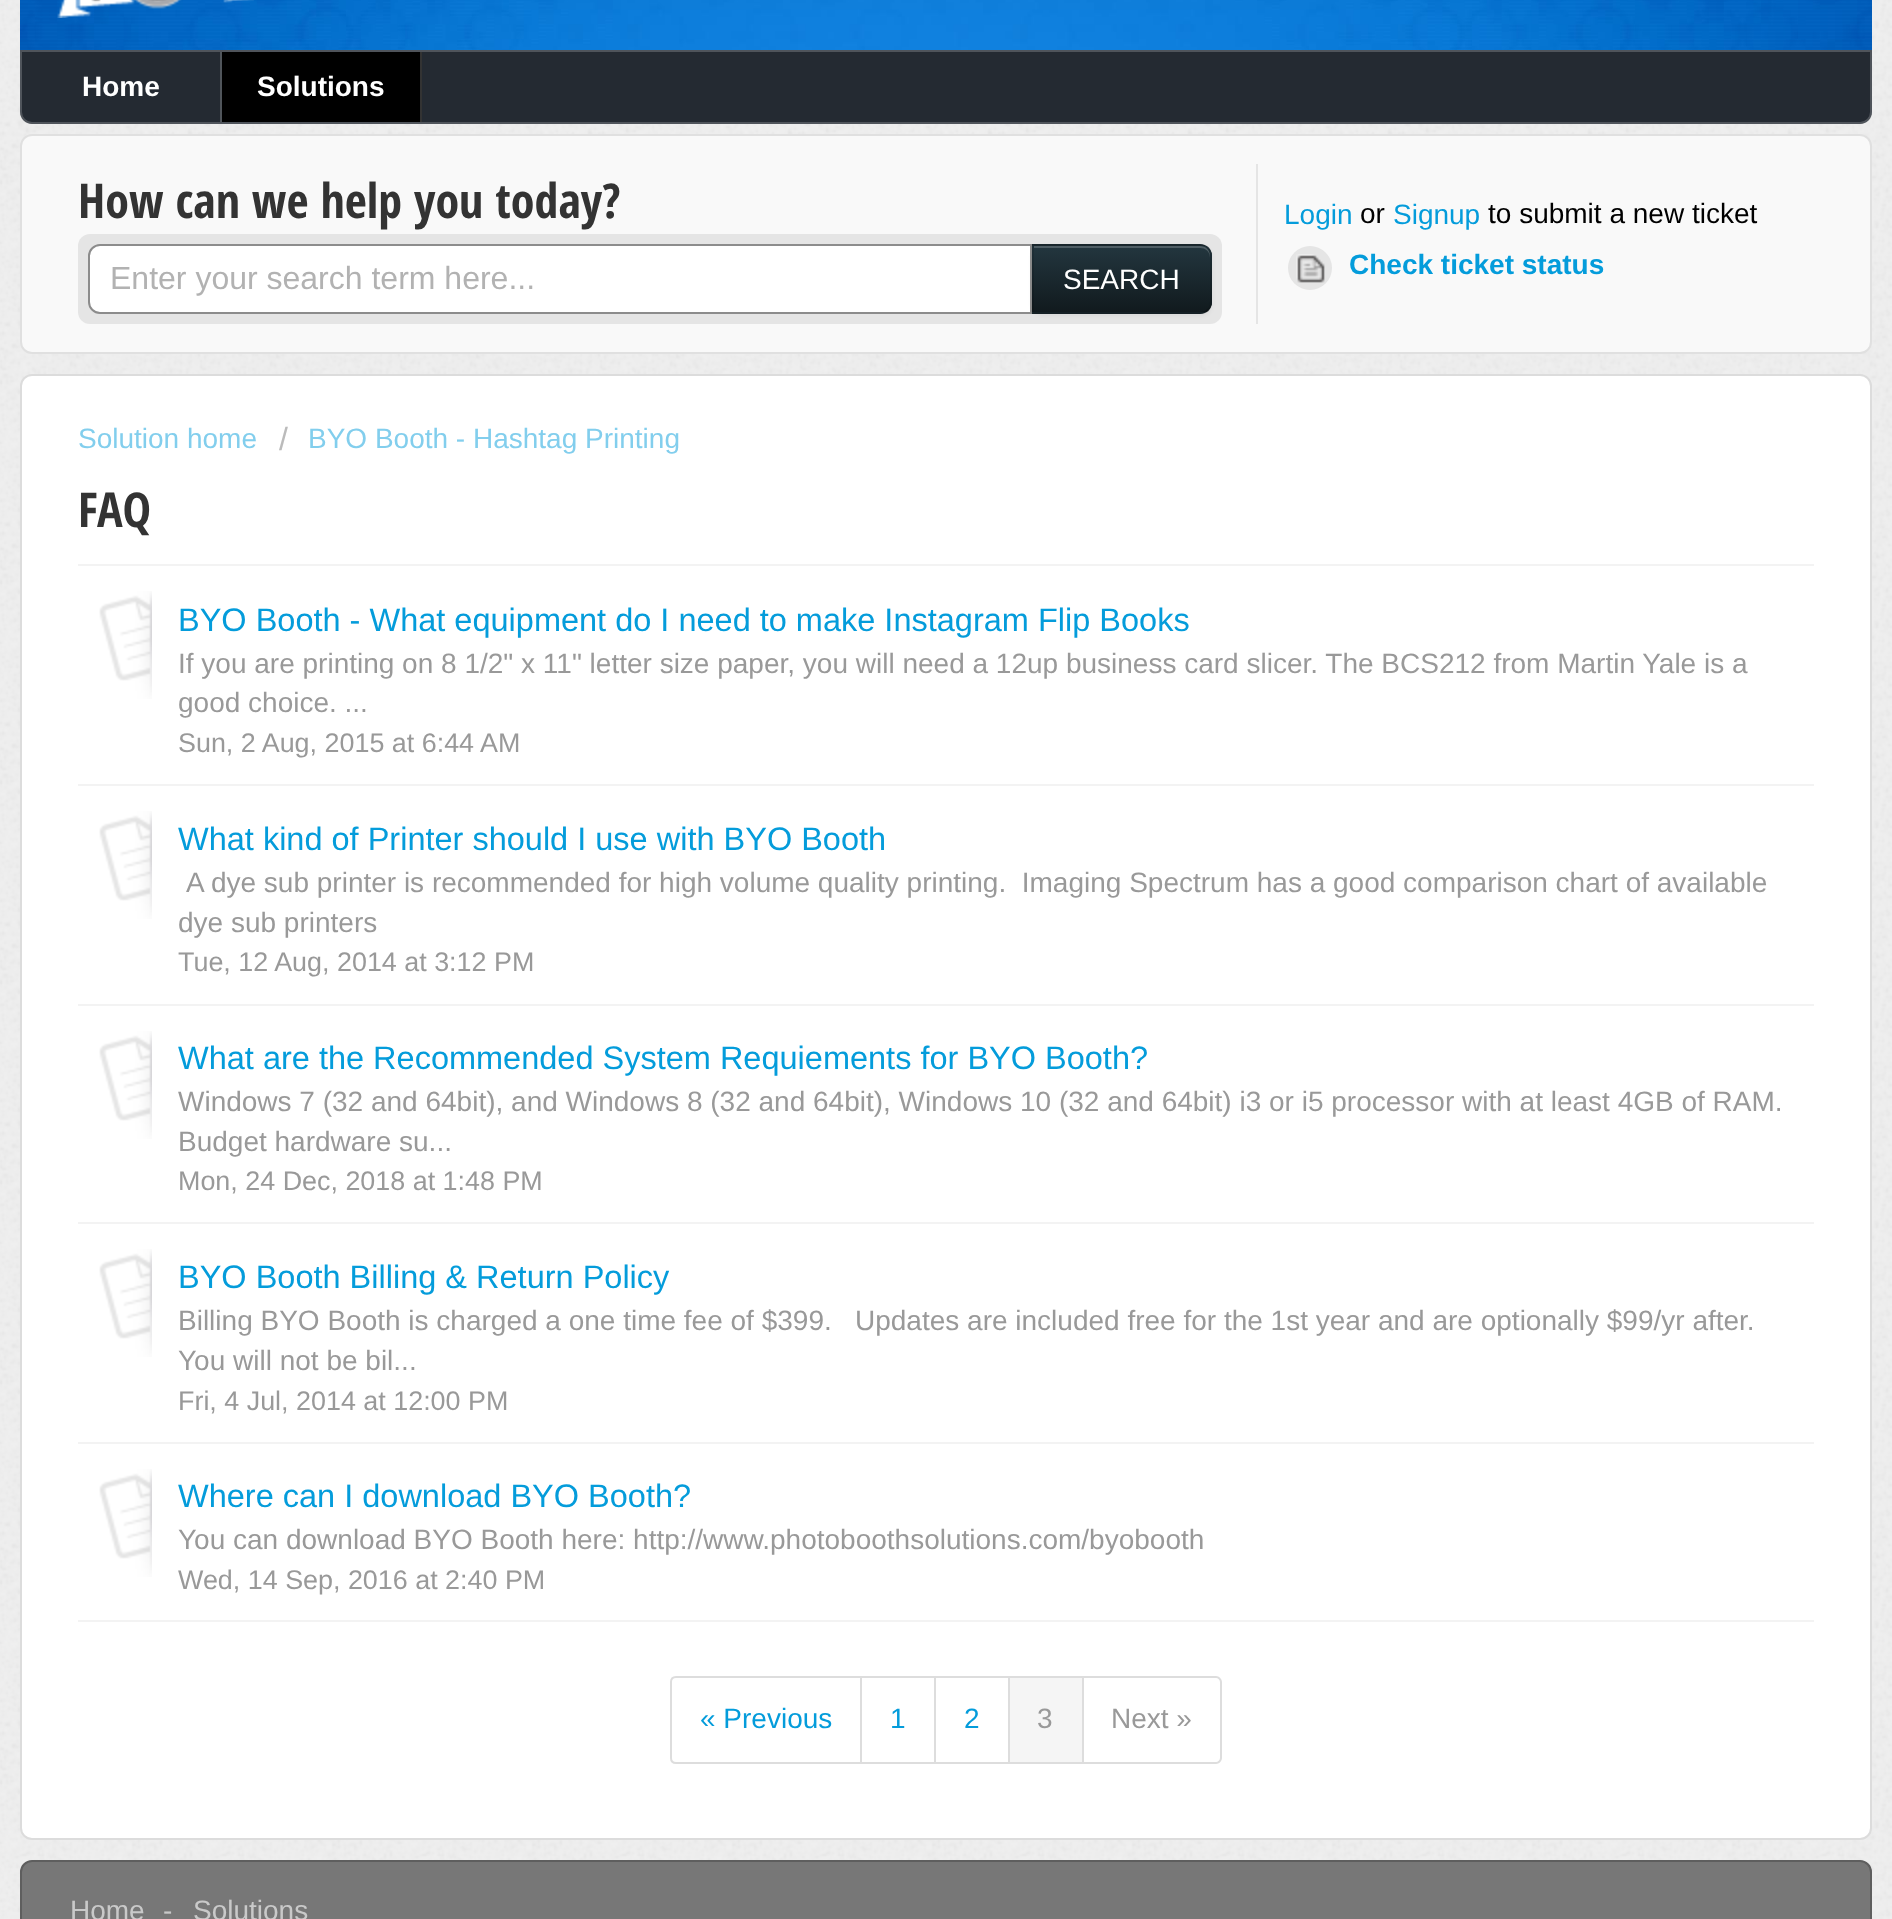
<svg xmlns="http://www.w3.org/2000/svg" xmlns:xlink="http://www.w3.org/1999/xlink" width="1892" height="1919" viewBox="0 0 1892 1919">
<style>
.cls-1{font:bold 28px Liberation Sans;fill:#ffffff}
.cls-2{font:bold 48px Open Sans Condensed;fill:#333333}
.cls-3{font:32px Liberation Sans;fill:#b2b2b2}
.cls-4{font:28px Liberation Sans;fill:#ffffff}
.cls-5{font:28px Liberation Sans;fill:#049cdb}
.cls-6{font:28px Liberation Sans;fill:#000000}
.cls-7{font:bold 28px Liberation Sans;fill:#049cdb}
.cls-8{font:28px Liberation Sans;fill:#82ceed}
.cls-9{font:32px Liberation Sans;fill:#bbbbbb}
.cls-10{font:32.5px Liberation Sans;fill:#049cdb}
.cls-11{font:28px Liberation Sans;fill:#999999}
.cls-12{font:26.9px Liberation Sans;fill:#999999}
.cls-13{font:28px Liberation Sans;fill:#c9c9c9}
</style>
<defs>
<clipPath id="clip1"><path d="M1032 244H1200C1206.5 244 1212 249.5 1212 256V302C1212 308.5 1206.5 314 1200 314H1032Z"/></clipPath>
<linearGradient id="g1" gradientUnits="userSpaceOnUse" x1="1122" y1="246" x2="1122" y2="312"><stop offset="0" stop-color="#23363f"/><stop offset="1" stop-color="#111a1e"/></linearGradient>
</defs>
<rect width="100%" height="100%" fill="#efefef"/>
<image xlink:href="image0.png" x="0" y="0" width="1892" height="1919"/>
<image xlink:href="image1.png" x="20" y="0" width="1852" height="50"/>
<image xlink:href="image2.png" x="57" y="0" width="197" height="18"/>
<path fill="#242a32" d="M20 50H1872V112C1872 118.5 1866.5 124 1860 124H32C25.5 124 20 118.5 20 112Z"/>
<path fill="none" stroke="#ffffff" stroke-opacity="0.2" stroke-width="2" d="M21 51H1871V112C1871 118 1866 123 1860 123H32C26 123 21 118 21 112Z"/>
<rect fill="#50555b" x="220" y="52" width="2" height="70"/>
<rect fill="#000000" x="222" y="52" width="198" height="70"/>
<rect fill="#333333" x="420" y="52" width="2" height="70"/>
<rect fill="#f9f9f9" stroke="#e0e0e0" stroke-width="2" x="21" y="135" width="1850" height="218" rx="11"/>
<rect fill="#e5e5e5" x="1256" y="164" width="2" height="160"/>
<rect fill="#e5e5e5" x="78" y="234" width="1144" height="90" rx="12"/>
<path fill="#ffffff" stroke="#8c8c8c" stroke-width="2" d="M100 245H1031V313H100C94 313 89 308 89 302V256C89 250 94 245 100 245Z"/>
<rect fill="#000000" fill-opacity="0.05" filter="blur(2px)" x="1032" y="246" width="180" height="70" rx="12"/>
<path fill="#1c2b32" d="M1032 244H1200C1206.5 244 1212 249.5 1212 256V302C1212 308.5 1206.5 314 1200 314H1032Z"/>
<g clip-path="url(#clip1)">
<rect fill="url(#g1)" x="1032" y="246" width="180" height="66"/>
</g>
<path fill="#ffffff" fill-opacity="0.2" d="M1034 248H1200C1206 248 1210 252 1210 258V256C1210 250 1206 246 1200 246H1034Z"/>
<path fill="#000000" fill-opacity="0.1" d="M1032 244L1034 246H1200C1203 246 1206 247 1207 249L1209 247C1206 245 1204 244 1200 244Z"/>
<path fill="#000000" fill-opacity="0.1" d="M1212 302V256C1212 252 1211 250 1209 247L1207 249C1209 250 1210 253 1210 256V302C1210 305 1209 308 1207 309L1209 311C1211 308 1212 306 1212 302Z"/>
<path fill="#000000" fill-opacity="0.25" d="M1200 314C1204 314 1206 313 1209 311L1207 309C1206 311 1203 312 1200 312H1034L1032 314Z"/>
<path fill="#000000" fill-opacity="0.1" d="M1032 244V314L1034 312V246Z"/>
<circle fill="#e5e5e5" cx="1310" cy="268" r="22"/>
<image xlink:href="image3.png" x="1296" y="254" width="29" height="29"/>
<rect fill="#ffffff" stroke="#dcdcdc" stroke-width="2" x="21" y="375" width="1850" height="1464" rx="11"/>
<rect fill="#f3f3f3" x="78" y="1620" width="1736" height="2"/>
<rect fill="#f3f3f3" x="78" y="564" width="1736" height="2"/>
<image xlink:href="image4.png" x="99" y="591" width="53" height="108"/>
<rect fill="#f3f3f3" x="78" y="784" width="1736" height="2"/>
<image xlink:href="image4.png" x="99" y="811" width="53" height="108"/>
<rect fill="#f3f3f3" x="78" y="1004" width="1736" height="2"/>
<image xlink:href="image4.png" x="99" y="1031" width="53" height="108"/>
<rect fill="#f3f3f3" x="78" y="1222" width="1736" height="2"/>
<image xlink:href="image4.png" x="99" y="1249" width="53" height="108"/>
<rect fill="#f3f3f3" x="78" y="1442" width="1736" height="2"/>
<image xlink:href="image4.png" x="99" y="1469" width="53" height="108"/>
<path fill="none" stroke="#dddddd" stroke-width="2" d="M676 1677H861V1763H676C673 1763 671 1761 671 1758V1682C671 1679 673 1677 676 1677Z"/>
<rect fill="#dddddd" x="862" y="1676" width="222" height="2"/>
<rect fill="#dddddd" x="934" y="1676" width="2" height="88"/>
<rect fill="#dddddd" x="862" y="1762" width="74" height="2"/>
<rect fill="#dddddd" x="1008" y="1676" width="2" height="88"/>
<rect fill="#dddddd" x="936" y="1762" width="74" height="2"/>
<rect fill="#f5f5f5" x="1010" y="1678" width="72" height="84"/>
<rect fill="#dddddd" x="1082" y="1676" width="2" height="88"/>
<rect fill="#dddddd" x="1010" y="1762" width="74" height="2"/>
<path fill="#dddddd" fill-rule="evenodd" d="M1084 1676H1216C1219 1676 1222 1679 1222 1682V1758C1222 1761 1219 1764 1216 1764H1084ZM1084 1678H1216C1218 1678 1220 1680 1220 1682V1758C1220 1760 1218 1762 1216 1762H1084Z"/>
<rect fill="#777777" stroke="#5e5e5e" stroke-width="2" x="21" y="1861" width="1850" height="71" rx="11"/>
<text class="cls-1" x="82" y="96">Home</text>
<text class="cls-1" x="257" y="96">Solutions</text>
<text class="cls-2" x="78" y="218">How can we help you today?</text>
<text class="cls-3" x="110" y="289">Enter your search term here...</text>
<text class="cls-4" x="1063" y="289">SEARCH</text>
<text class="cls-5" x="1284" y="224">Login</text>
<text class="cls-6" x="1360" y="223">or</text>
<text class="cls-5" x="1393" y="224">Signup</text>
<text class="cls-6" x="1488" y="223">to submit a new ticket</text>
<text class="cls-7" x="1349" y="274">Check ticket status</text>
<text class="cls-8" x="78" y="448">Solution home</text>
<text class="cls-9" x="279" y="450">/</text>
<text class="cls-8" x="308" y="448">BYO Booth - Hashtag Printing</text>
<text class="cls-2" x="78" y="527">FAQ</text>
<text class="cls-10" x="178" y="631">BYO Booth - What equipment do I need to make Instagram Flip Books</text>
<text class="cls-11"><tspan x="178" y="673">If you are printing on 8 1/2" x 11" letter size paper, you will need a 12up business card slicer. The BCS212 from Martin Yale is a</tspan><tspan x="178" y="712">good choice. ...</tspan></text>
<text class="cls-12" x="178" y="752">Sun, 2 Aug, 2015 at 6:44 AM</text>
<text class="cls-10" x="178" y="850">What kind of Printer should I use with BYO Booth</text>
<text class="cls-11" xml:space="preserve" x="186" y="892">A dye sub printer is recommended for high volume quality printing.  Imaging Spectrum has a good comparison chart of available</text>
<text class="cls-11" x="178" y="932">dye sub printers</text>
<text class="cls-12" x="178" y="971">Tue, 12 Aug, 2014 at 3:12 PM</text>
<text class="cls-10" x="178" y="1069">What are the Recommended System Requiements for BYO Booth?</text>
<text class="cls-11"><tspan x="178" y="1111">Windows 7 (32 and 64bit), and Windows 8 (32 and 64bit), Windows 10 (32 and 64bit) i3 or i5 processor with at least 4GB of RAM.</tspan><tspan x="178" y="1151">Budget hardware su...</tspan></text>
<text class="cls-12" x="178" y="1190">Mon, 24 Dec, 2018 at 1:48 PM</text>
<text class="cls-10" x="178" y="1288">BYO Booth Billing &amp; Return Policy</text>
<text class="cls-11" x="178" y="1330">Billing BYO Booth is charged a one time fee of $399.</text>
<text class="cls-11" x="855" y="1330">Updates are included free for the 1st year and are optionally $99/yr after.</text>
<text class="cls-11" x="178" y="1370">You will not be bil...</text>
<text class="cls-12" x="178" y="1410">Fri, 4 Jul, 2014 at 12:00 PM</text>
<text class="cls-10" x="178" y="1507">Where can I download BYO Booth?</text>
<text class="cls-11" x="178" y="1549">You can download BYO Booth here: http://www.photoboothsolutions.com/byobooth</text>
<text class="cls-12" x="178" y="1589">Wed, 14 Sep, 2016 at 2:40 PM</text>
<text class="cls-5" x="700" y="1728">« Previous</text>
<text class="cls-5" x="890" y="1728">1</text>
<text class="cls-5" x="964" y="1728">2</text>
<text class="cls-11" x="1037" y="1728">3</text>
<text class="cls-11" x="1111" y="1728">Next »</text>
<text class="cls-13" x="70" y="1920">Home</text>
<text class="cls-13" x="163" y="1920">-</text>
<text class="cls-13" x="193" y="1920">Solutions</text>
</svg>
